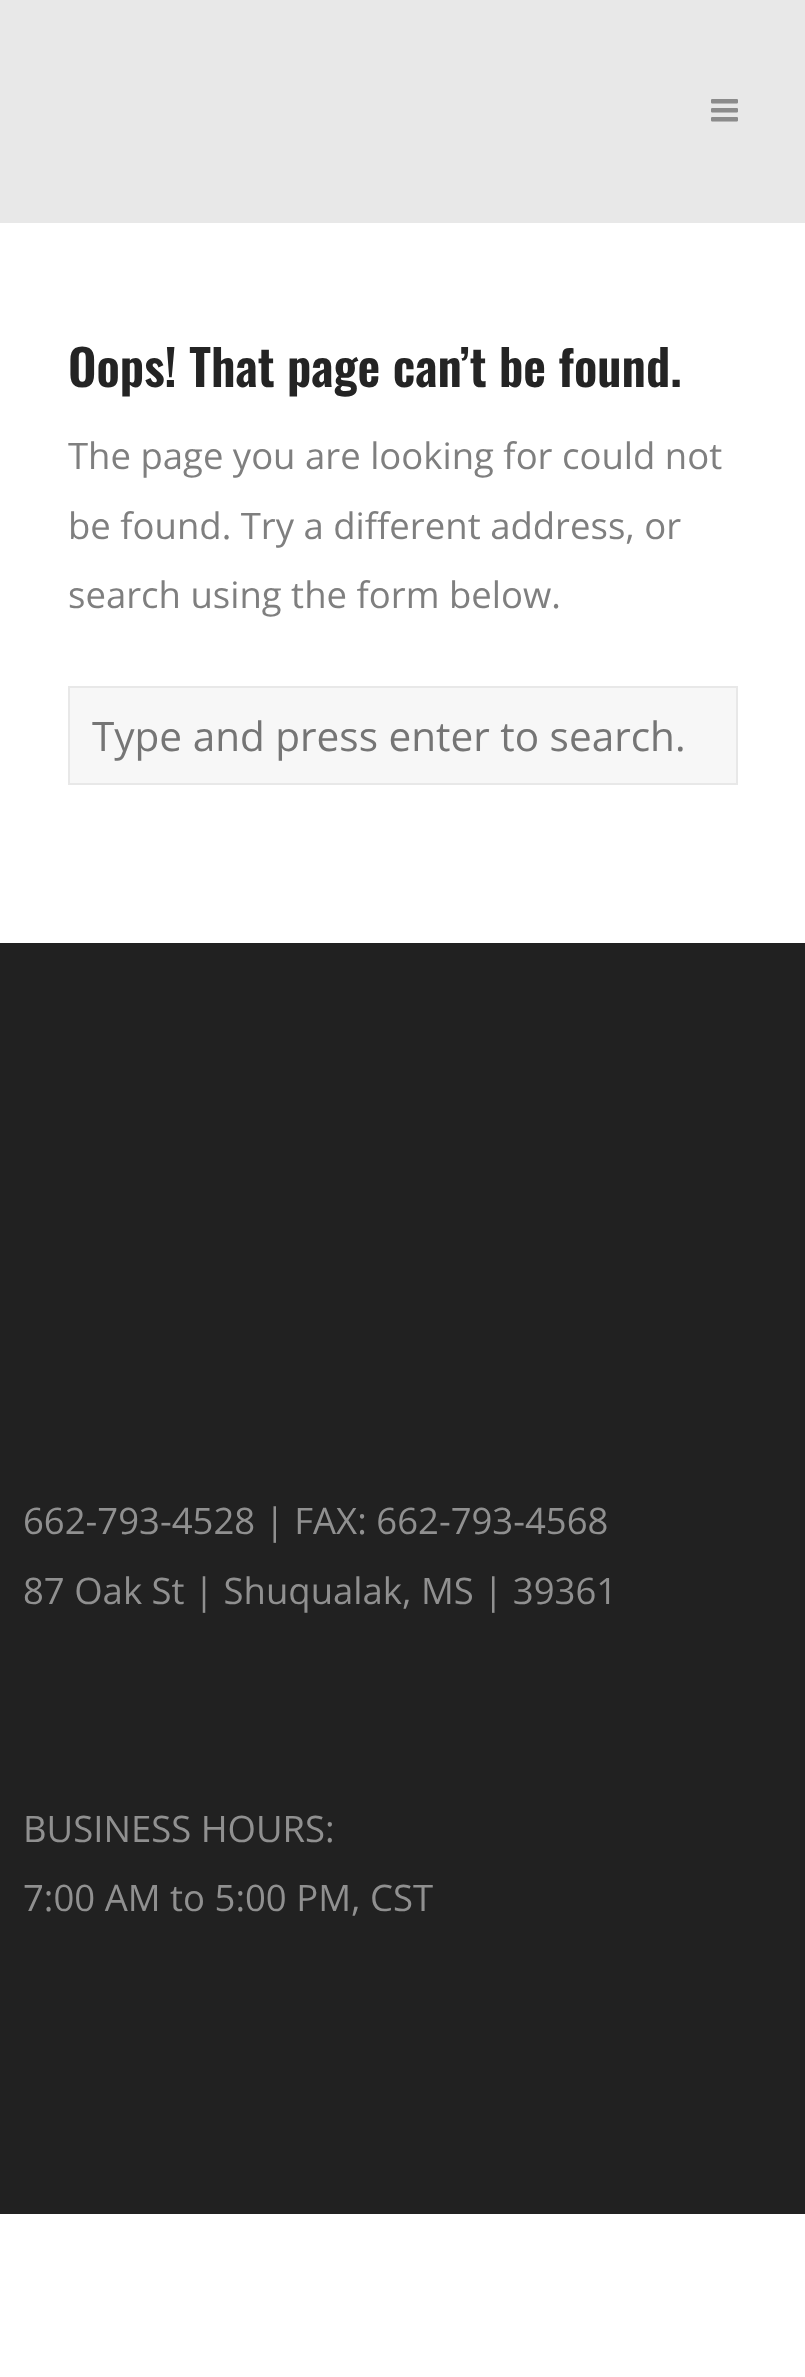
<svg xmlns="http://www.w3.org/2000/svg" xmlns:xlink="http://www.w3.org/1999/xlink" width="805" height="2377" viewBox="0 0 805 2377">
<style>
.cls-1{font:600 49.5px Oswald;fill:#242424}
.cls-2{font:36.5px Open Sans;fill:#7f7f7f}
.cls-3{font:40.5px Open Sans;fill:#757575}
.cls-4{font:36.5px Open Sans;fill:#909090}
</style>
<rect width="100%" height="100%" fill="#ffffff"/>
<rect fill="#e8e8e8" x="0" y="0" width="805" height="223"/>
<image xlink:href="image0.png" x="711" y="99" width="27" height="23"/>
<rect fill="#f7f7f7" stroke="#e8e8e8" stroke-width="2" x="69" y="687" width="668" height="97"/>
<rect fill="#212121" x="0" y="943" width="805" height="1271"/>
<text class="cls-1" x="68" y="387">Oops! That page can’t be found.</text>
<text class="cls-2"><tspan x="68" y="469">The page you are looking for could not</tspan><tspan x="68" y="539">be found. Try a different address, or</tspan><tspan x="68" y="608">search using the form below.</tspan></text>
<text class="cls-3" x="92" y="751">Type and press enter to search.</text>
<text class="cls-4"><tspan x="23" y="1534">662-793-4528 | FAX: 662-793-4568</tspan><tspan x="23" y="1604">87 Oak St | Shuqualak, MS | 39361</tspan></text>
<text class="cls-4"><tspan x="23" y="1842">BUSINESS HOURS:</tspan><tspan x="23" y="1911">7:00 AM to 5:00 PM, CST</tspan></text>
</svg>
